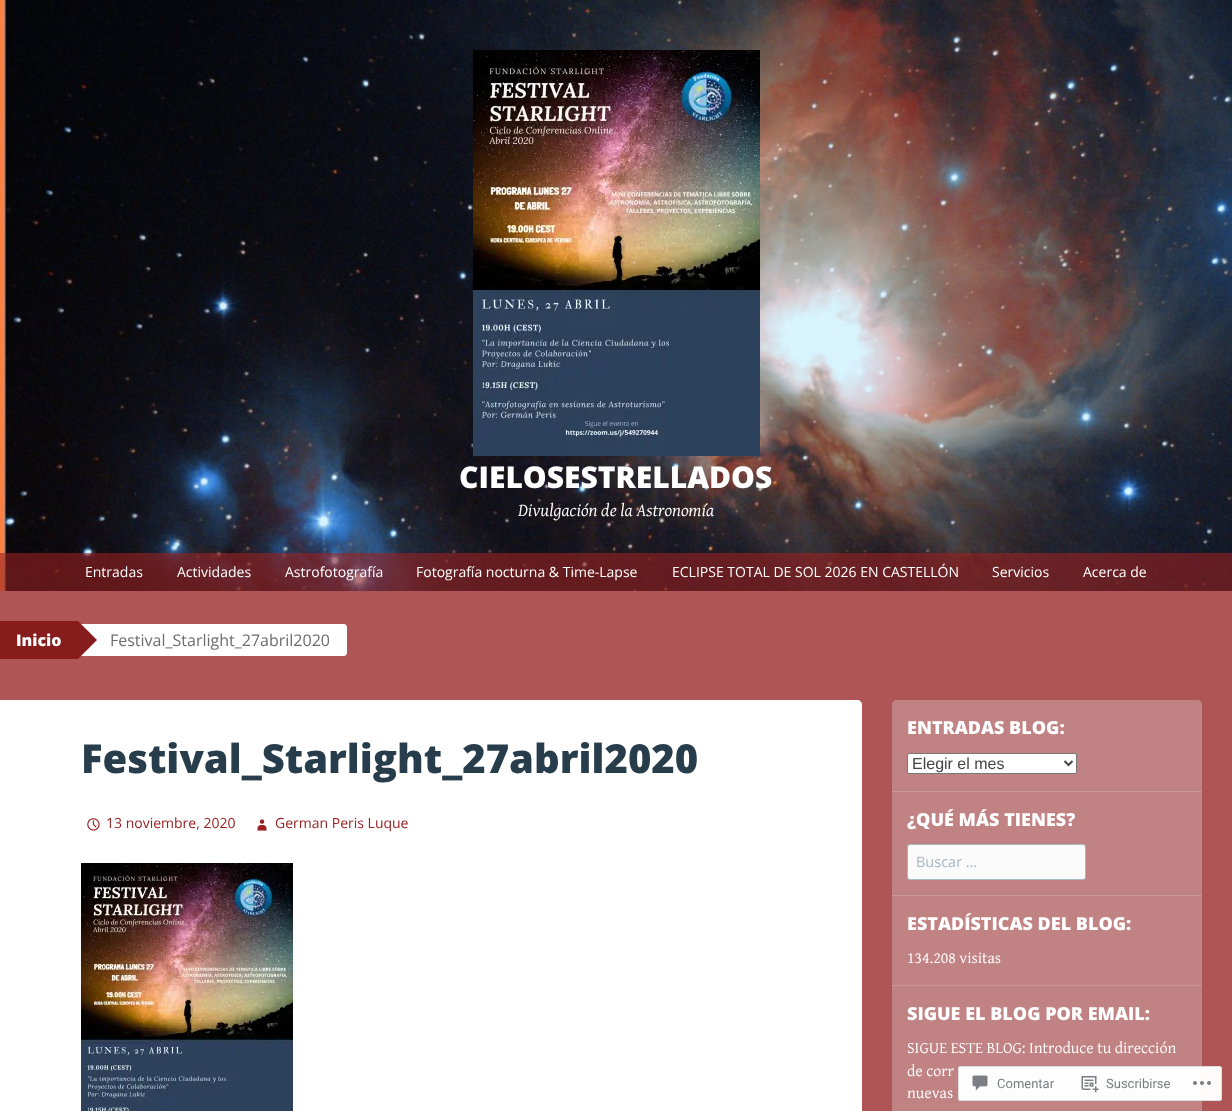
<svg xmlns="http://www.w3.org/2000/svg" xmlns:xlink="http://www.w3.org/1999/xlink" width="1232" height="1111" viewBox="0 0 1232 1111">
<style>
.cls-1{font:800 30px Open Sans;fill:#ffffff}
.cls-2{font:italic 18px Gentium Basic;fill:#ffffff}
.cls-3{font:14px Open Sans;fill:#ffffff}
.cls-4{font:800 16px Open Sans;fill:#ffffff}
.cls-5{font:16px Open Sans;fill:#6d6d6d}
.cls-6{font:800 40px Open Sans;fill:#283d4b}
.cls-7{font:14px Open Sans;fill:#9a2121}
.cls-8{font:800 18px Open Sans;fill:#ffffff}
.cls-9{font:16px Liberation Sans;fill:#444444}
.cls-10{font:14.5px Open Sans;fill:#a6b7c0}
.cls-11{font:16px Gentium Basic;fill:#ffffff}
.cls-12{font:13px Roboto;fill:#7b7f84}
</style>
<rect width="100%" height="100%" fill="#af5555"/>
<image xlink:href="image0.png" x="0" y="0" width="1232" height="591"/>
<image xlink:href="image1.png" x="473" y="50" width="287" height="406"/>
<rect fill="#9a2121" fill-opacity="0.6" x="0" y="553" width="1232" height="38"/>
<rect fill="#861c1c" x="0" y="621" width="78" height="38"/>
<rect fill="#ffffff" x="81" y="624" width="29" height="32"/>
<path fill="#861c1c" d="M78 659V621L97 640Z"/>
<path fill="#ffffff" d="M110 624H344C345.5 624 347 625.5 347 627V653C347 654.5 345.5 656 344 656H110Z"/>
<path fill="#ffffff" d="M0 700H857C860 700 862 702 862 705V1111C862 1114 860 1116 857 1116H0Z"/>
<image xlink:href="image2.png" x="87" y="818" width="13" height="13"/>
<image xlink:href="image3.png" x="257" y="819" width="10" height="12"/>
<image xlink:href="image4.png" x="81" y="863" width="212" height="248"/>
<path fill="#c18283" d="M897 700H1197C1200 700 1202 702 1202 705V791H892V705C892 702 894 700 897 700Z"/>
<rect fill="#ffffff" stroke="#767676" x="907.5" y="753.5" width="169" height="20" rx="1.5"/>
<path fill="none" stroke="#444444" stroke-width="2" d="M1064.5 761L1068.5 765L1072.5 761"/>
<rect fill="#c18283" x="892" y="792" width="310" height="103"/>
<rect fill="#c99798" x="892" y="791" width="310" height="1"/>
<rect fill="#fbfbfb" stroke="#a6b7c0" x="907.5" y="844.5" width="178" height="35" rx="2.5"/>
<rect fill="#c18283" x="892" y="896" width="310" height="89"/>
<rect fill="#c99798" x="892" y="895" width="310" height="1"/>
<rect fill="#c18283" x="892" y="986" width="310" height="125"/>
<rect fill="#c99798" x="892" y="985" width="310" height="1"/>
<rect fill="#ffffff" fill-opacity="0.98" x="958" y="1066" width="264" height="35" rx="3"/>
<rect fill="none" stroke="#dcdcde" stroke-opacity="0.98" x="958.5" y="1066.5" width="263" height="34" rx="2.5"/>
<image xlink:href="image5.png" x="972" y="1075" width="16" height="16"/>
<image xlink:href="image6.png" x="1081" y="1076" width="18" height="17"/>
<image xlink:href="image7.png" x="1193" y="1081" width="18" height="4"/>
<text class="cls-1" x="459" y="488">CIELOSESTRELLADOS</text>
<text class="cls-2" x="518" y="516">Divulgación de la Astronomía</text>
<text class="cls-3" x="85" y="577">Entradas</text>
<text class="cls-3" x="177" y="577">Actividades</text>
<text class="cls-3" x="285" y="577">Astrofotografía</text>
<text class="cls-3" x="416" y="577">Fotografía nocturna &amp; Time-Lapse</text>
<text class="cls-3" x="672" y="577">ECLIPSE TOTAL DE SOL 2026 EN CASTELLÓN</text>
<text class="cls-3" x="992" y="577">Servicios</text>
<text class="cls-3" x="1083" y="577">Acerca de</text>
<text class="cls-4" x="16" y="646">Inicio</text>
<text class="cls-5" x="110" y="646">Festival_Starlight_27abril2020</text>
<text class="cls-6" x="81" y="773">Festival_Starlight_27abril2020</text>
<text class="cls-7" x="106" y="828">13 noviembre, 2020</text>
<text class="cls-7" x="275" y="828">German Peris Luque</text>
<text class="cls-8" x="907" y="734">ENTRADAS BLOG:</text>
<text class="cls-9" x="912" y="769">Elegir el mes</text>
<text class="cls-8" x="907" y="826">¿QUÉ MÁS TIENES?</text>
<text class="cls-10" x="916" y="867">Buscar …</text>
<text class="cls-8" x="907" y="930">ESTADÍSTICAS DEL BLOG:</text>
<text class="cls-11" x="907" y="963">134.208 visitas</text>
<text class="cls-8" x="907" y="1020">SIGUE EL BLOG POR EMAIL:</text>
<text class="cls-11"><tspan x="907" y="1053">SIGUE ESTE BLOG: Introduce tu dirección</tspan><tspan x="907" y="1076">de corr</tspan><tspan x="907" y="1098">nuevas</tspan></text>
<text class="cls-12" x="997" y="1088">Comentar</text>
<text class="cls-12" x="1106" y="1088">Suscribirse</text>
</svg>
